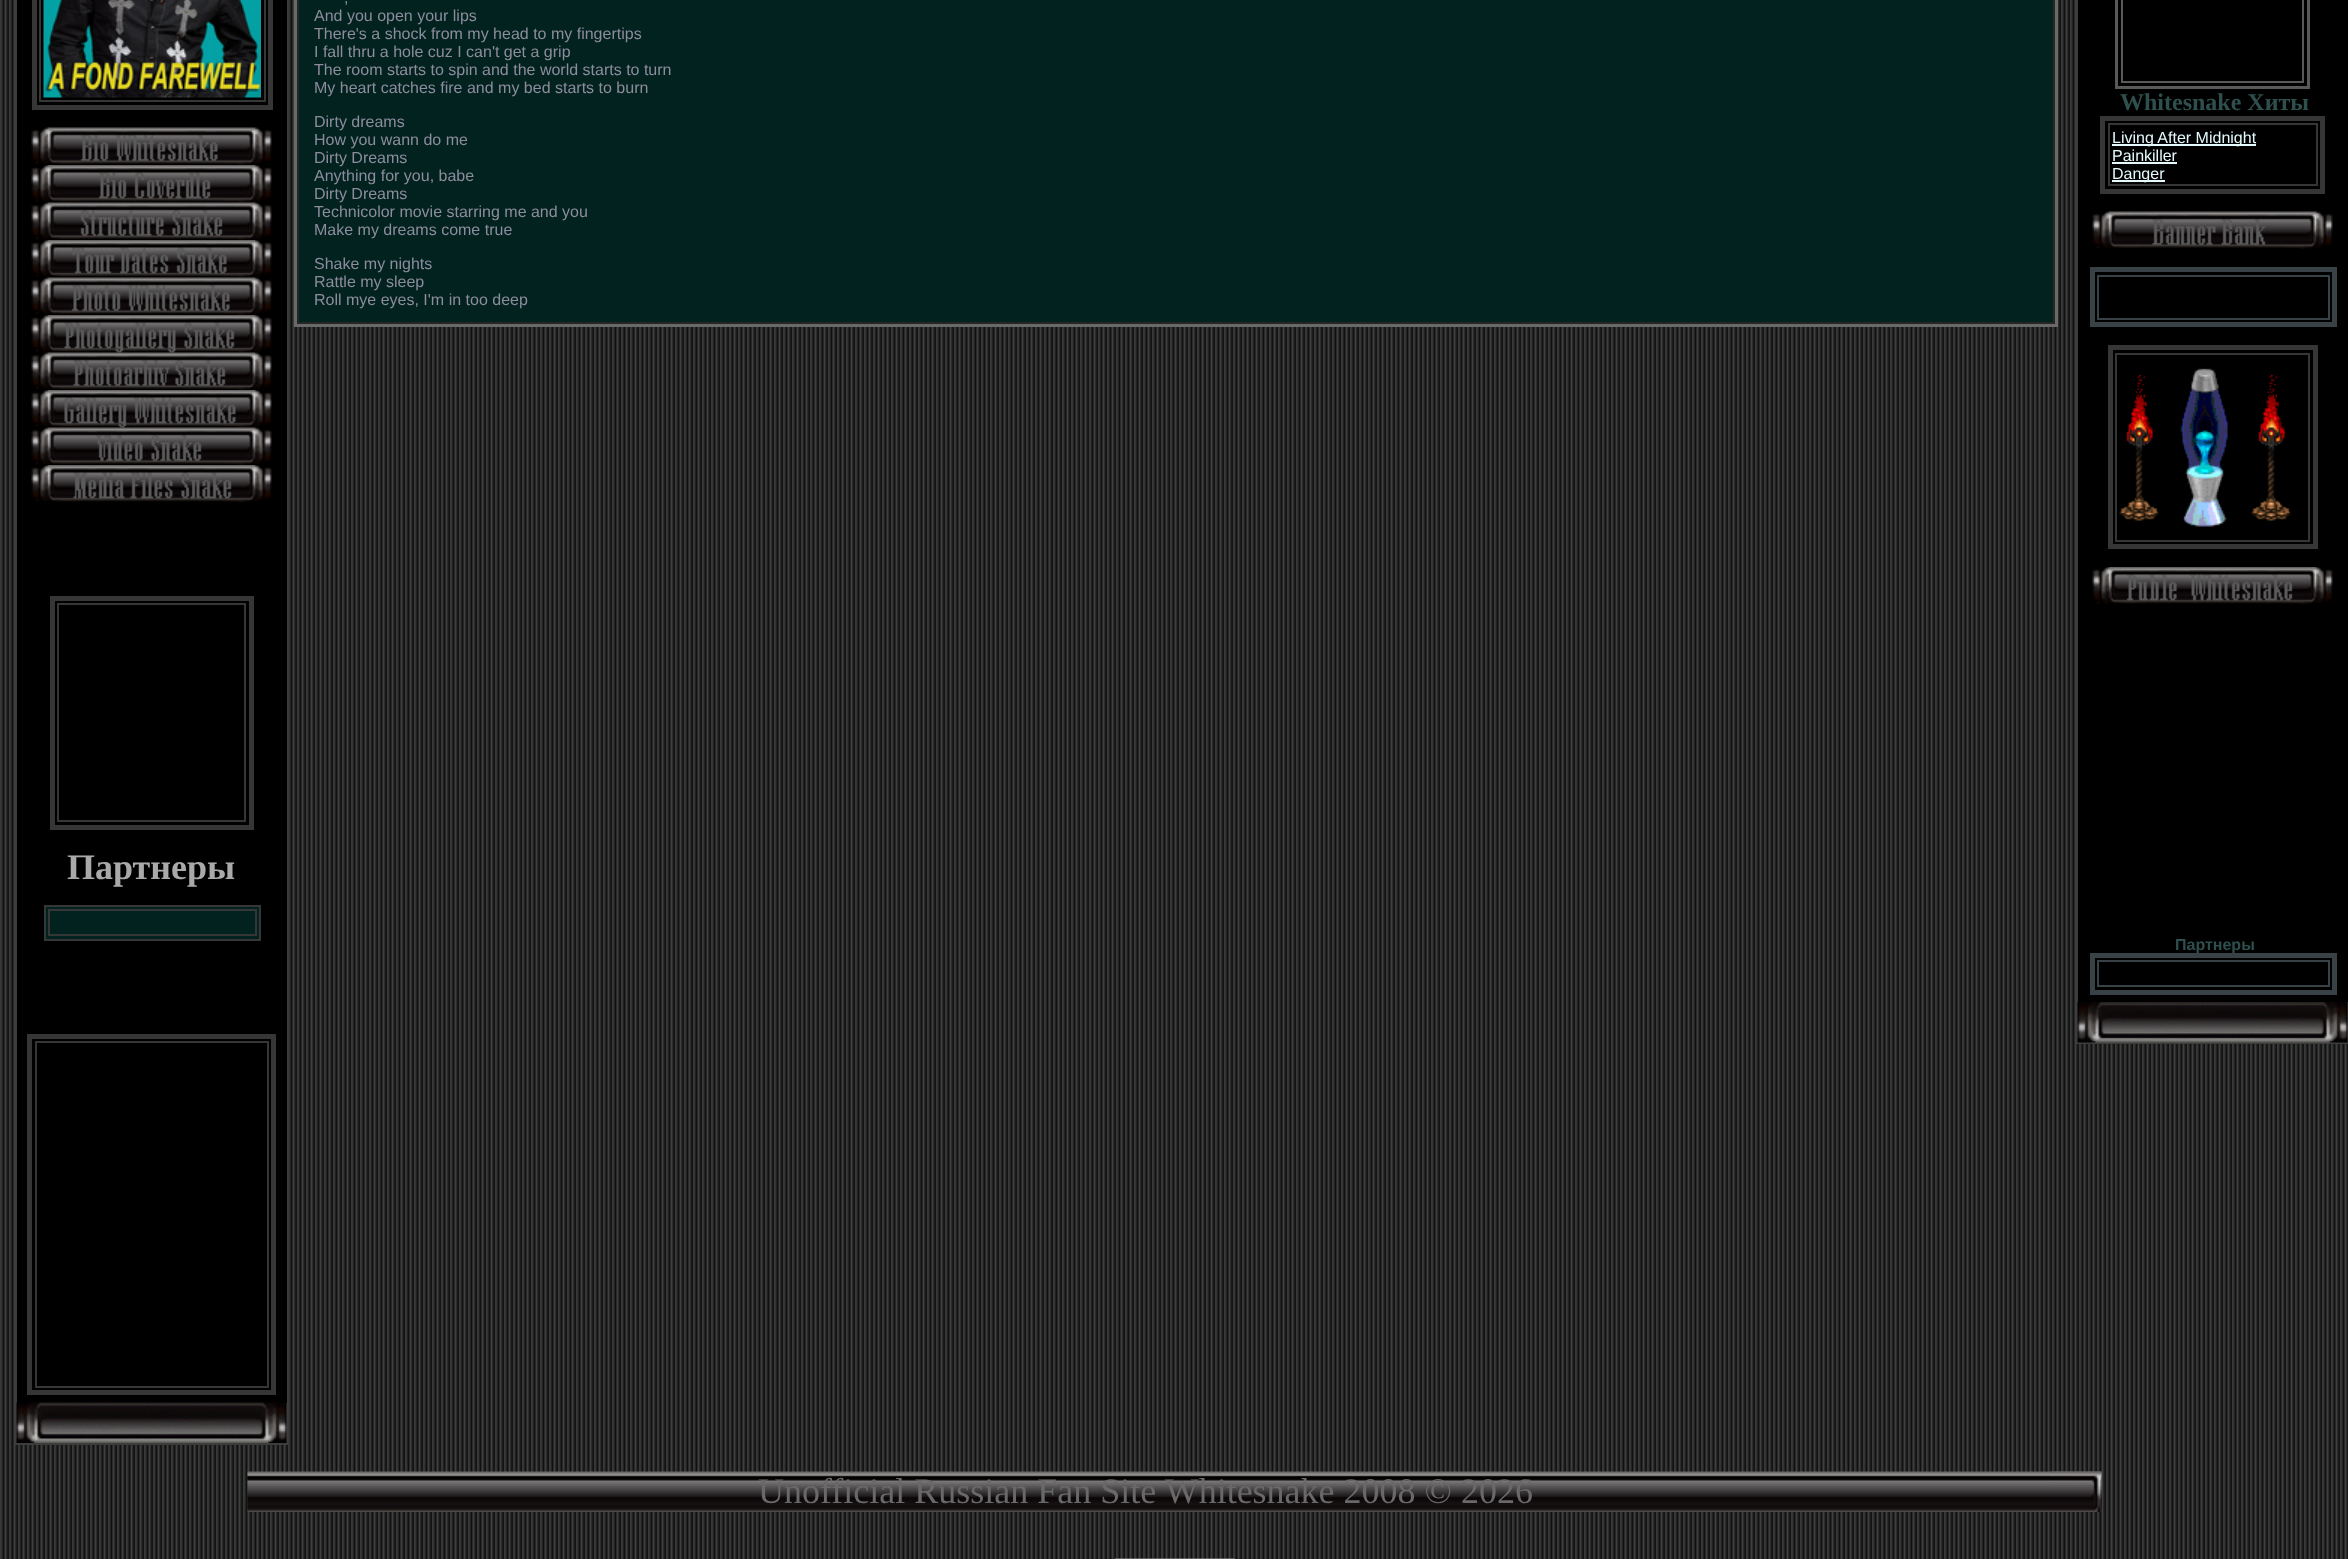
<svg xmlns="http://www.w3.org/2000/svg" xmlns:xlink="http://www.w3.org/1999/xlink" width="2348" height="1559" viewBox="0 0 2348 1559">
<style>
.cls-1{font:bold 36px Liberation Serif;fill:#a9a9a9}
.cls-2{font:16px Liberation Sans;fill:#8c8c9c}
.cls-3{font:bold 24px Liberation Serif;fill:#2f4f4f}
.cls-4{font:16px Liberation Sans;fill:#e4fafd}
.cls-5{font:bold 16px Liberation Sans;fill:#2f4f4f}
.cls-6{font:36px Liberation Serif;fill:#696969}
</style>
<rect width="100%" height="100%" fill="#ffffff"/>
<image xlink:href="image0.png" x="0" y="0" width="2348" height="1559"/>
<rect fill="none" stroke="#3c3c3c" stroke-width="2" x="16" y="-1" width="271" height="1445"/>
<rect fill="#000000" x="17" y="0" width="270" height="1403"/>
<rect fill="none" stroke="#363636" stroke-width="5" x="34.5" y="-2.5" width="236" height="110"/>
<rect fill="none" stroke="#363636" stroke-width="2" x="40" y="-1" width="225" height="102"/>
<image xlink:href="image1.png" x="43" y="0" width="218" height="98"/>
<image xlink:href="image2.png" x="31" y="127" width="241" height="38"/>
<image xlink:href="image3.png" x="31" y="165" width="241" height="38"/>
<image xlink:href="image4.png" x="31" y="202" width="241" height="38"/>
<image xlink:href="image5.png" x="31" y="240" width="241" height="38"/>
<image xlink:href="image6.png" x="31" y="277" width="241" height="38"/>
<image xlink:href="image7.png" x="31" y="315" width="241" height="38"/>
<image xlink:href="image8.png" x="31" y="352" width="241" height="38"/>
<image xlink:href="image9.png" x="31" y="390" width="241" height="38"/>
<image xlink:href="image10.png" x="31" y="427" width="241" height="38"/>
<image xlink:href="image11.png" x="31" y="465" width="241" height="38"/>
<rect fill="none" stroke="#363636" stroke-width="5" x="52.5" y="598.5" width="199" height="229"/>
<rect fill="none" stroke="#363636" stroke-width="2" x="58" y="604" width="187" height="217"/>
<rect fill="#02221f" stroke="#363636" stroke-width="2" x="45" y="906" width="215" height="34"/>
<rect fill="none" stroke="#363636" stroke-width="2" x="49" y="910" width="207" height="25"/>
<rect fill="none" stroke="#363636" stroke-width="5" x="29.5" y="1036.5" width="244" height="356"/>
<rect fill="none" stroke="#363636" stroke-width="2" x="36" y="1042" width="232" height="345"/>
<image xlink:href="image12.png" x="16" y="1402" width="271" height="41"/>
<rect fill="none" stroke="#696969" stroke-width="3" x="295.5" y="-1.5" width="1761" height="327"/>
<rect fill="#02221f" stroke="#262626" stroke-width="2" x="298" y="-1" width="1756" height="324"/>
<rect fill="none" stroke="#3c3c3c" stroke-width="2" x="2077" y="-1" width="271" height="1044"/>
<rect fill="#000000" x="2078" y="0" width="270" height="1002"/>
<rect fill="none" stroke="#595959" stroke-width="3" x="2116.5" y="-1.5" width="192" height="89"/>
<rect fill="none" stroke="#595959" stroke-width="2" x="2122" y="-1" width="181" height="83"/>
<rect fill="none" stroke="#363636" stroke-width="5" x="2102.5" y="118.5" width="220" height="73"/>
<rect fill="none" stroke="#363636" stroke-width="2" x="2109" y="124" width="208" height="61"/>
<rect fill="#e4fafd" x="2112" y="144" width="144" height="2"/>
<rect fill="#e4fafd" x="2112" y="162" width="65" height="2"/>
<rect fill="#e4fafd" x="2112" y="180" width="53" height="2"/>
<image xlink:href="image13.png" x="2092" y="211" width="241" height="38"/>
<rect fill="none" stroke="#384146" stroke-width="5" x="2092.5" y="269.5" width="242" height="55"/>
<rect fill="none" stroke="#384146" stroke-width="2" x="2098" y="276" width="231" height="43"/>
<rect fill="none" stroke="#363636" stroke-width="5" x="2110.5" y="347.5" width="205" height="199"/>
<rect fill="none" stroke="#363636" stroke-width="2" x="2116" y="354" width="193" height="187"/>
<image xlink:href="image14.png" x="2119" y="375" width="40" height="146"/>
<image xlink:href="image15.png" x="2180" y="368" width="48" height="159"/>
<image xlink:href="image16.png" x="2251" y="375" width="40" height="146"/>
<image xlink:href="image17.png" x="2092" y="567" width="241" height="38"/>
<rect fill="none" stroke="#384146" stroke-width="5" x="2092.5" y="955.5" width="242" height="37"/>
<rect fill="none" stroke="#384146" stroke-width="2" x="2098" y="961" width="231" height="25"/>
<image xlink:href="image18.png" x="2077" y="1002" width="271" height="41"/>
<image xlink:href="image19.png" x="247" y="1471" width="1855" height="41"/>
<image xlink:href="image20.png" x="2050" y="1471" width="52" height="41"/>
<image xlink:href="image21.png" x="1114" y="1558" width="121" height="1"/>
<text class="cls-1" x="67" y="879">Партнеры</text>
<text class="cls-2" x="344" y="3">,</text>
<text class="cls-2"><tspan x="314" y="21">And you open your lips</tspan><tspan x="314" y="39">There's a shock from my head to my fingertips</tspan><tspan x="314" y="57">I fall thru a hole cuz I can't get a grip</tspan><tspan x="314" y="75">The room starts to spin and the world starts to turn</tspan><tspan x="314" y="93">My heart catches fire and my bed starts to burn</tspan></text>
<text class="cls-2"><tspan x="314" y="127">Dirty dreams</tspan><tspan x="314" y="145">How you wann do me</tspan><tspan x="314" y="163">Dirty Dreams</tspan><tspan x="314" y="181">Anything for you, babe</tspan><tspan x="314" y="199">Dirty Dreams</tspan><tspan x="314" y="217">Technicolor movie starring me and you</tspan><tspan x="314" y="235">Make my dreams come true</tspan></text>
<text class="cls-2"><tspan x="314" y="269">Shake my nights</tspan><tspan x="314" y="287">Rattle my sleep</tspan><tspan x="314" y="305">Roll mye eyes, I'm in too deep</tspan></text>
<text class="cls-3" x="2120" y="110">Whitesnake Хиты</text>
<text class="cls-4"><tspan x="2112" y="143">Living After Midnight</tspan><tspan x="2112" y="161">Painkiller</tspan><tspan x="2112" y="179">Danger</tspan></text>
<text class="cls-5" x="2175" y="950">Партнеры</text>
<text class="cls-6" x="758" y="1503">Unofficial Russian Fan Site Whitesnake 2008 © 2026</text>
</svg>
